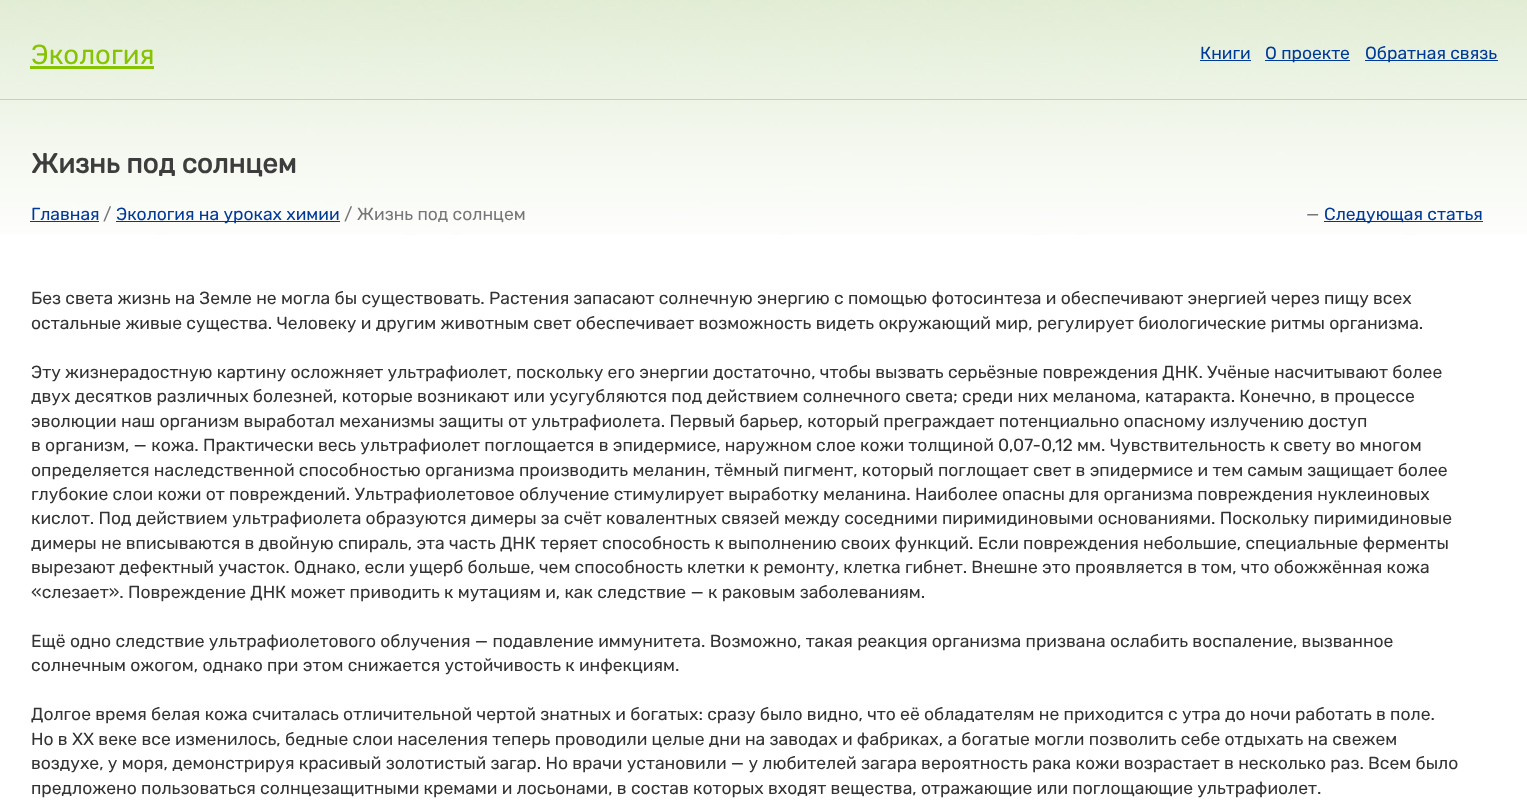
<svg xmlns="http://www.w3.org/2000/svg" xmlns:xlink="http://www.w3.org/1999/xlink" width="1527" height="807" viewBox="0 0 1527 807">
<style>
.cls-1{font:27.5px Rubik;fill:#86c300}
.cls-2{font:17.5px Rubik;fill:#003a97}
.cls-3{font:bold 27.5px Rubik;fill:#3d3d3d}
.cls-4{font:17.5px Rubik;fill:#777777}
.cls-5{font:17.5px Rubik;fill:#333333}
</style>
<rect width="100%" height="100%" fill="#ffffff"/>
<image xlink:href="image0.png" x="0" y="0" width="1527" height="235"/>
<rect fill="#cccccc" x="0" y="99" width="1527" height="1"/>
<rect fill="#86c300" x="30" y="66" width="124" height="3"/>
<rect fill="#003a97" x="1200" y="60" width="51" height="1"/>
<rect fill="#003a97" x="1265" y="60" width="85" height="1"/>
<rect fill="#003a97" x="1365" y="60" width="133" height="1"/>
<rect fill="#003a97" x="30" y="221" width="69" height="1"/>
<rect fill="#003a97" x="116" y="221" width="224" height="1"/>
<rect fill="#003a97" x="1324" y="221" width="159" height="1"/>
<text class="cls-1" x="31" y="64">Экология</text>
<text class="cls-2" x="1200" y="59">Книги</text>
<text class="cls-2" x="1265" y="59">О проекте</text>
<text class="cls-2" x="1365" y="59">Обратная связь</text>
<text class="cls-3" x="31" y="173">Жизнь под солнцем</text>
<text class="cls-2" x="31" y="220">Главная</text>
<text class="cls-4" x="103" y="220">/</text>
<text class="cls-2" x="116" y="220">Экология на уроках химии</text>
<text class="cls-4" x="344" y="220">/ Жизнь под солнцем</text>
<text class="cls-4" x="1306" y="220">—</text>
<text class="cls-2" x="1324" y="220">Следующая статья</text>
<text class="cls-5"><tspan x="31" y="304">Без света жизнь на Земле не могла бы существовать. Растения запасают солнечную энергию с помощью фотосинтеза и обеспечивают энергией через пищу всех</tspan><tspan x="31" y="329">остальные живые существа. Человеку и другим животным свет обеспечивает возможность видеть окружающий мир, регулирует биологические ритмы организма.</tspan></text>
<text class="cls-5"><tspan x="31" y="378">Эту жизнерадостную картину осложняет ультрафиолет, поскольку его энергии достаточно, чтобы вызвать серьёзные повреждения ДНК. Учёные насчитывают более</tspan><tspan x="31" y="402">двух десятков различных болезней, которые возникают или усугубляются под действием солнечного света; среди них меланома, катаракта. Конечно, в процессе</tspan><tspan x="31" y="427">эволюции наш организм выработал механизмы защиты от ультрафиолета. Первый барьер, который преграждает потенциально опасному излучению доступ</tspan><tspan x="31" y="451">в организм, — кожа. Практически весь ультрафиолет поглощается в эпидермисе, наружном слое кожи толщиной 0,07-0,12 мм. Чувствительность к свету во многом</tspan><tspan x="31" y="476">определяется наследственной способностью организма производить меланин, тёмный пигмент, который поглощает свет в эпидермисе и тем самым защищает более</tspan><tspan x="31" y="500">глубокие слои кожи от повреждений. Ультрафиолетовое облучение стимулирует выработку меланина. Наиболее опасны для организма повреждения нуклеиновых</tspan><tspan x="31" y="524">кислот. Под действием ультрафиолета образуются димеры за счёт ковалентных связей между соседними пиримидиновыми основаниями. Поскольку пиримидиновые</tspan><tspan x="31" y="549">димеры не вписываются в двойную спираль, эта часть ДНК теряет способность к выполнению своих функций. Если повреждения небольшие, специальные ферменты</tspan><tspan x="31" y="573">вырезают дефектный участок. Однако, если ущерб больше, чем способность клетки к ремонту, клетка гибнет. Внешне это проявляется в том, что обожжённая кожа</tspan><tspan x="31" y="598">«слезает». Повреждение ДНК может приводить к мутациям и, как следствие — к раковым заболеваниям.</tspan></text>
<text class="cls-5"><tspan x="31" y="647">Ещё одно следствие ультрафиолетового облучения — подавление иммунитета. Возможно, такая реакция организма призвана ослабить воспаление, вызванное</tspan><tspan x="31" y="671">солнечным ожогом, однако при этом снижается устойчивость к инфекциям.</tspan></text>
<text class="cls-5"><tspan x="31" y="720">Долгое время белая кожа считалась отличительной чертой знатных и богатых: сразу было видно, что её обладателям не приходится с утра до ночи работать в поле.</tspan><tspan x="31" y="745">Но в XX веке все изменилось, бедные слои населения теперь проводили целые дни на заводах и фабриках, а богатые могли позволить себе отдыхать на свежем</tspan><tspan x="31" y="769">воздухе, у моря, демонстрируя красивый золотистый загар. Но врачи установили — у любителей загара вероятность рака кожи возрастает в несколько раз. Всем было</tspan><tspan x="31" y="794">предложено пользоваться солнцезащитными кремами и лосьонами, в состав которых входят вещества, отражающие или поглощающие ультрафиолет.</tspan></text>
</svg>
